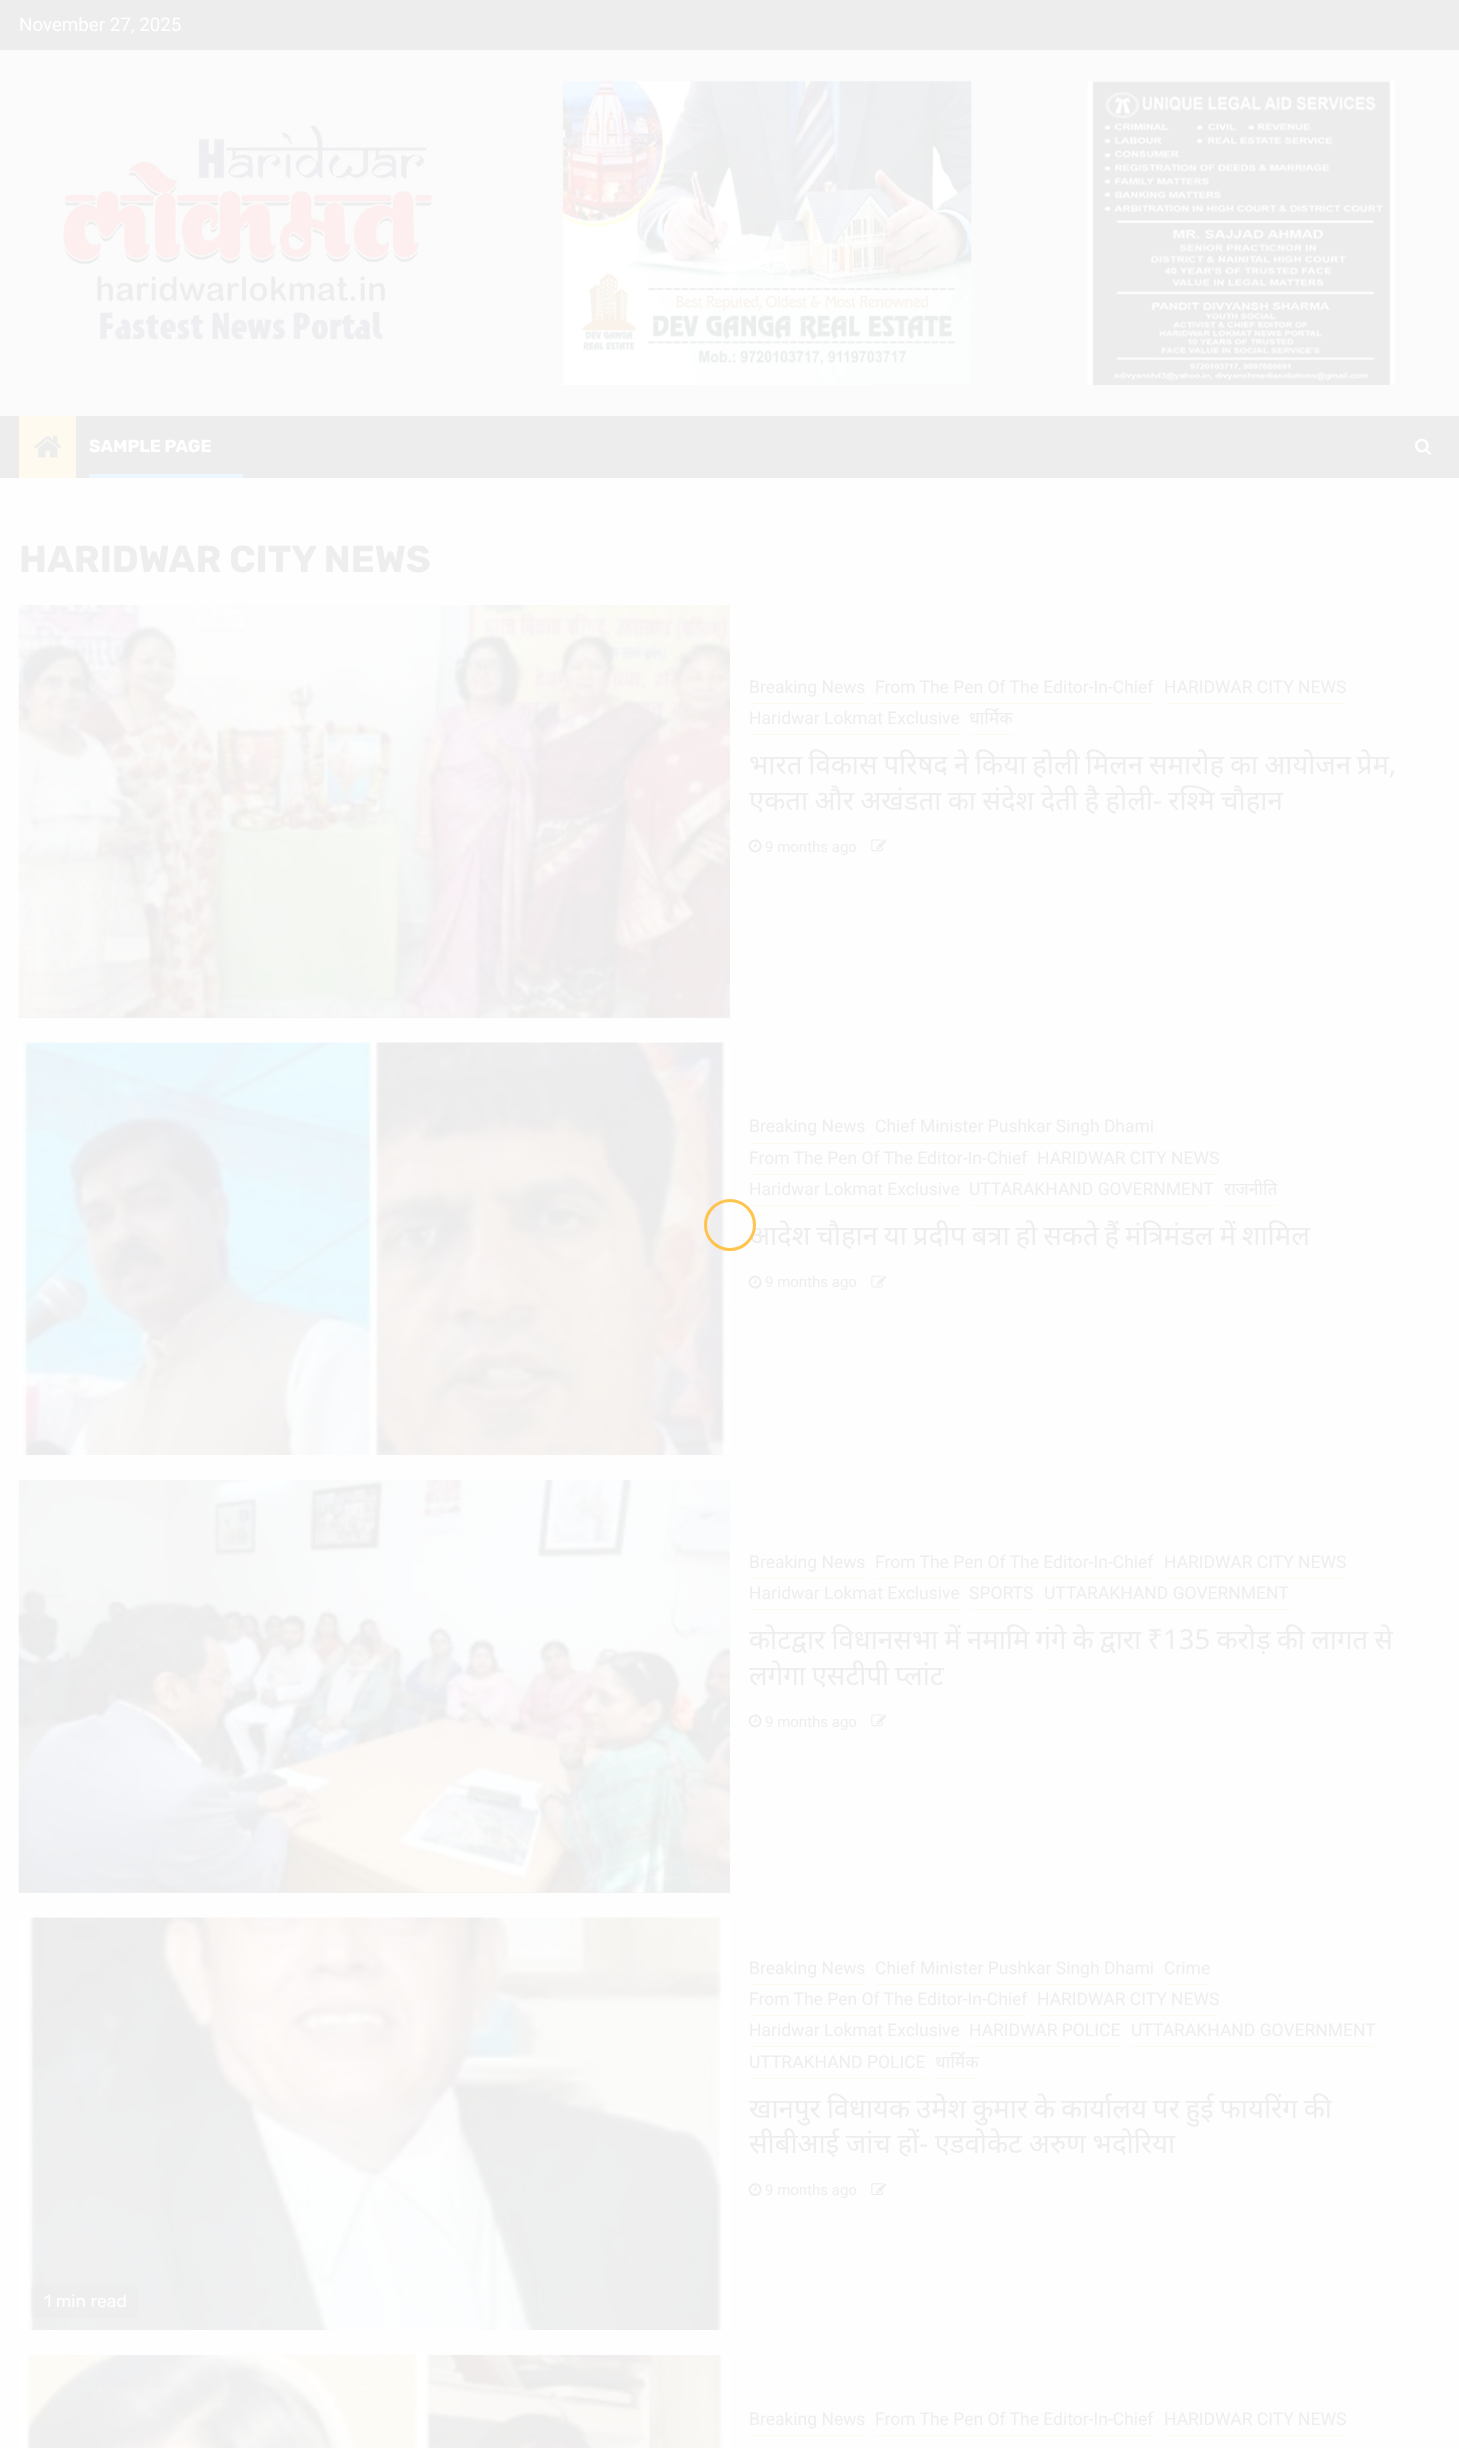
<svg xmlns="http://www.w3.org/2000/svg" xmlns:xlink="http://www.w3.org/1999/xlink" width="1459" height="2448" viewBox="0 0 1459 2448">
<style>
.cls-1{font:18.75px Roboto;fill:#ffffff}
.cls-2{font:bold 17.5px Rubik;fill:#ffffff}
.cls-3{font:bold 37.5px Rubik;fill:#eeeeee}
.cls-4{font:17.5px Roboto;fill:#eeeeee}
.cls-5{font:17.5px Noto Sans;fill:#eeeeee}
.cls-6{font:27.5px Noto Sans;fill:#eeeeee}
.cls-7{font:15px Roboto;fill:#eeeeee}
.cls-8{font:17.5px Rubik;fill:#ffffff}
</style>
<rect width="100%" height="100%" fill="#fefefe"/>
<rect fill="#fbfbfb" x="0" y="50" width="1459" height="366"/>
<rect fill="#ededed" x="0" y="0" width="1459" height="50"/>
<image xlink:href="image0.png" x="63" y="125" width="370" height="215"/>
<image xlink:href="image1.png" x="562" y="81" width="833" height="304"/>
<rect fill="#ededed" x="0" y="416" width="1459" height="62"/>
<rect fill="#fffaf0" x="19" y="416" width="57" height="62"/>
<image xlink:href="image2.png" x="34" y="436" width="28" height="22"/>
<rect fill="#edf7fe" x="89" y="474" width="154" height="4"/>
<image xlink:href="image3.png" x="1415" y="438" width="17" height="17"/>
<rect fill="#f0f0f0" x="19" y="1017" width="711" height="1"/>
<image xlink:href="image4.png" x="18" y="605" width="712" height="413"/>
<rect fill="#fffaf0" x="749" y="703" width="116" height="1"/>
<rect fill="#fffaf0" x="875" y="703" width="279" height="1"/>
<rect fill="#fffaf0" x="1164" y="703" width="182" height="1"/>
<rect fill="#fffaf0" x="749" y="734" width="211" height="1"/>
<rect fill="#fffaf0" x="970" y="734" width="44" height="1"/>
<image xlink:href="image5.png" x="748" y="839" width="14" height="14"/>
<image xlink:href="image6.png" x="871" y="839" width="16" height="13"/>
<image xlink:href="image7.png" x="19" y="1042" width="711" height="413"/>
<rect fill="#fffaf0" x="749" y="1143" width="116" height="1"/>
<rect fill="#fffaf0" x="875" y="1143" width="279" height="1"/>
<rect fill="#fffaf0" x="749" y="1174" width="279" height="1"/>
<rect fill="#fffaf0" x="1038" y="1174" width="182" height="1"/>
<rect fill="#fffaf0" x="749" y="1205" width="211" height="1"/>
<rect fill="#fffaf0" x="970" y="1205" width="244" height="1"/>
<rect fill="#fffaf0" x="1224" y="1205" width="54" height="1"/>
<image xlink:href="image8.png" x="748" y="1275" width="14" height="14"/>
<image xlink:href="image9.png" x="871" y="1275" width="16" height="13"/>
<rect fill="#f0f0f0" x="19" y="1892" width="711" height="1"/>
<image xlink:href="image10.png" x="18" y="1480" width="712" height="413"/>
<rect fill="#fffaf0" x="749" y="1578" width="116" height="1"/>
<rect fill="#fffaf0" x="875" y="1578" width="279" height="1"/>
<rect fill="#fffaf0" x="1164" y="1578" width="182" height="1"/>
<rect fill="#fffaf0" x="749" y="1609" width="211" height="1"/>
<rect fill="#fffaf0" x="970" y="1609" width="64" height="1"/>
<rect fill="#fffaf0" x="1044" y="1609" width="245" height="1"/>
<image xlink:href="image5.png" x="748" y="1714" width="14" height="14"/>
<image xlink:href="image6.png" x="871" y="1714" width="16" height="13"/>
<rect fill="#fffaf0" x="749" y="1984" width="116" height="1"/>
<rect fill="#fffaf0" x="875" y="1984" width="279" height="1"/>
<rect fill="#fffaf0" x="1164" y="1984" width="46" height="1"/>
<rect fill="#fffaf0" x="749" y="2015" width="279" height="1"/>
<rect fill="#fffaf0" x="1038" y="2015" width="182" height="1"/>
<rect fill="#fffaf0" x="749" y="2046" width="211" height="1"/>
<rect fill="#fffaf0" x="970" y="2046" width="151" height="1"/>
<rect fill="#fffaf0" x="1131" y="2046" width="244" height="1"/>
<rect fill="#fffaf0" x="749" y="2078" width="176" height="1"/>
<rect fill="#fffaf0" x="935" y="2078" width="44" height="1"/>
<image xlink:href="image11.png" x="748" y="2183" width="14" height="14"/>
<image xlink:href="image12.png" x="871" y="2183" width="16" height="12"/>
<image xlink:href="image13.png" x="19" y="1917" width="711" height="413"/>
<rect fill="#ebebeb" fill-opacity="0.5" x="31" y="2284" width="108" height="34" rx="6"/>
<image xlink:href="image14.png" x="19" y="2355" width="711" height="93"/>
<rect fill="#fffaf0" x="749" y="2435" width="116" height="1"/>
<rect fill="#fffaf0" x="875" y="2435" width="279" height="1"/>
<rect fill="#fffaf0" x="1164" y="2435" width="182" height="1"/>
<text class="cls-1" x="19" y="31">November 27, 2025</text>
<text class="cls-2" x="89" y="452">SAMPLE PAGE</text>
<text class="cls-3" x="19" y="572">HARIDWAR CITY NEWS</text>
<text class="cls-4" x="749" y="693">Breaking News</text>
<text class="cls-4" x="875" y="693">From The Pen Of The Editor-In-Chief</text>
<text class="cls-4" x="1164" y="693">HARIDWAR CITY NEWS</text>
<text class="cls-4" x="749" y="724">Haridwar Lokmat Exclusive</text>
<text class="cls-5" x="969" y="724">धार्मिक</text>
<text class="cls-6"><tspan x="749" y="774" word-spacing="-1.25">भारत विकास परिषद ने किया होली मिलन समारोह का आयोजन प्रेम,</tspan><tspan x="749" y="810" word-spacing="-0.75">एकता और अखंडता का संदेश देती है होली- रश्मि चौहान</tspan></text>
<text class="cls-7" x="765" y="852">9 months ago</text>
<text class="cls-4" x="749" y="1132">Breaking News</text>
<text class="cls-4" x="875" y="1132">Chief Minister Pushkar Singh Dhami</text>
<text class="cls-4" x="749" y="1164">From The Pen Of The Editor-In-Chief</text>
<text class="cls-4" x="1037" y="1164">HARIDWAR CITY NEWS</text>
<text class="cls-4" x="749" y="1195">Haridwar Lokmat Exclusive</text>
<text class="cls-4" x="969" y="1195">UTTARAKHAND GOVERNMENT</text>
<text class="cls-5" x="1224" y="1195">राजनीति</text>
<text class="cls-6" x="749" y="1245" word-spacing="-1.25">आदेश चौहान या प्रदीप बत्रा हो सकते हैं मंत्रिमंडल में शामिल</text>
<text class="cls-7" x="765" y="1287">9 months ago</text>
<text class="cls-4" x="749" y="1568">Breaking News</text>
<text class="cls-4" x="875" y="1568">From The Pen Of The Editor-In-Chief</text>
<text class="cls-4" x="1164" y="1568">HARIDWAR CITY NEWS</text>
<text class="cls-4" x="749" y="1599">Haridwar Lokmat Exclusive</text>
<text class="cls-4" x="969" y="1599">SPORTS</text>
<text class="cls-4" x="1044" y="1599">UTTARAKHAND GOVERNMENT</text>
<text class="cls-6"><tspan x="749" y="1649" word-spacing="-1">कोटद्वार विधानसभा में नमामि गंगे के द्वारा ₹135 करोड़ की लागत से</tspan><tspan x="749" y="1685" word-spacing="-1.25">लगेगा एसटीपी प्लांट</tspan></text>
<text class="cls-7" x="765" y="1727">9 months ago</text>
<text class="cls-4" x="749" y="1974">Breaking News</text>
<text class="cls-4" x="875" y="1974">Chief Minister Pushkar Singh Dhami</text>
<text class="cls-4" x="1164" y="1974">Crime</text>
<text class="cls-4" x="749" y="2005">From The Pen Of The Editor-In-Chief</text>
<text class="cls-4" x="1037" y="2005">HARIDWAR CITY NEWS</text>
<text class="cls-4" x="749" y="2036">Haridwar Lokmat Exclusive</text>
<text class="cls-4" x="969" y="2036">HARIDWAR POLICE</text>
<text class="cls-4" x="1131" y="2036">UTTARAKHAND GOVERNMENT</text>
<text class="cls-4" x="749" y="2068">UTTRAKHAND POLICE</text>
<text class="cls-5" x="935" y="2068">धार्मिक</text>
<text class="cls-6"><tspan x="749" y="2118" word-spacing="-1.25">खानपुर विधायक उमेश कुमार के कार्यालय पर हुई फायरिंग की</tspan><tspan x="749" y="2153" word-spacing="-0.5">सीबीआई जांच हों- एडवोकेट अरुण भदोरिया</tspan></text>
<text class="cls-7" x="765" y="2195">9 months ago</text>
<text class="cls-8" x="44" y="2307">1 min read</text>
<text class="cls-4" x="749" y="2425">Breaking News</text>
<text class="cls-4" x="875" y="2425">From The Pen Of The Editor-In-Chief</text>
<text class="cls-4" x="1164" y="2425">HARIDWAR CITY NEWS</text>
<circle fill="none" stroke="#ffbf3f" stroke-opacity="0.92" stroke-width="3" cx="730" cy="1225" r="24.5"/>
</svg>
